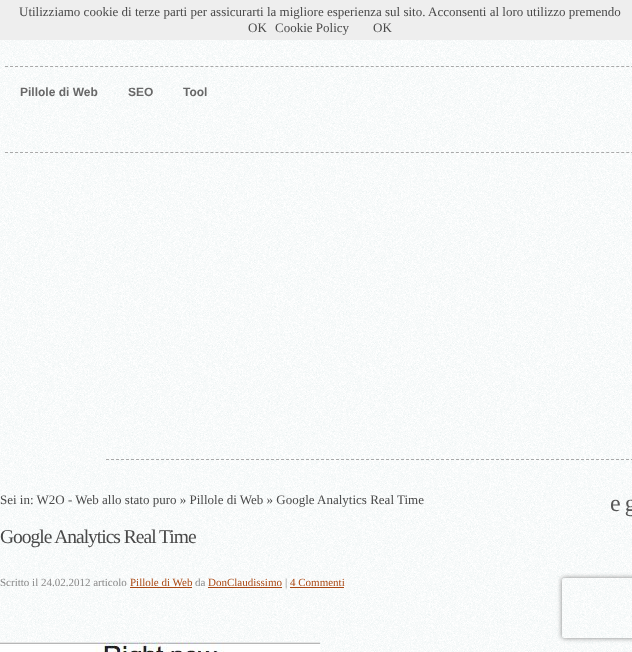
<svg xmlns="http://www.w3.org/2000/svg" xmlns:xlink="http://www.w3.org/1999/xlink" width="632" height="652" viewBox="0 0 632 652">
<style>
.cls-1{font:13px Liberation Serif;fill:#494949}
.cls-2{font:bold 12px Liberation Sans;fill:#686868}
.cls-3{font:19.5px Liberation Serif;letter-spacing:-1px;fill:#494949}
.cls-4{font:11px Liberation Serif;fill:#888888}
.cls-5{font:11px Liberation Serif;fill:#aa4813}
.cls-6{font:24px Liberation Serif;letter-spacing:-1px;fill:#575757}
</style>
<defs>
<clipPath id="clip1"><path d="M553 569H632V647H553ZM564 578H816C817 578 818 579 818 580V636C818 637 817 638 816 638H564C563 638 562 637 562 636V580C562 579 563 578 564 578Z" clip-rule="evenodd"/></clipPath>
</defs>
<rect width="100%" height="100%" fill="#ffffff"/>
<image xlink:href="image0.png" x="0" y="40" width="632" height="612"/>
<rect fill="#eeeeee" x="0" y="0" width="632" height="40"/>
<path fill="none" stroke="#a9a9a9" stroke-dasharray="3 2.01" d="M5 66.5H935"/>
<path fill="none" stroke="#a9a9a9" stroke-dasharray="3 2.01" d="M5 152.5H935"/>
<path fill="none" stroke="#a9a9a9" stroke-dasharray="3 2" d="M106 459.5H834"/>
<rect fill="#aa4813" x="130" y="587" width="62" height="1"/>
<rect fill="#aa4813" x="208" y="587" width="74" height="1"/>
<rect fill="#aa4813" x="290" y="587" width="54" height="1"/>
<image xlink:href="image1.png" x="0" y="642" width="320" height="10"/>
<g clip-path="url(#clip1)">
<rect fill="#808080" filter="blur(2.5px)" x="562" y="578" width="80" height="60" rx="2"/>
</g>
<text class="cls-1" x="19" y="16">Utilizziamo cookie di terze parti per assicurarti la migliore esperienza sul sito. Acconsenti al loro utilizzo premendo</text>
<text class="cls-1" x="248" y="32">OK</text>
<text class="cls-1" x="275" y="32">Cookie Policy</text>
<text class="cls-1" x="373" y="32">OK</text>
<text class="cls-2" x="20" y="96">Pillole di Web</text>
<text class="cls-2" x="128" y="96">SEO</text>
<text class="cls-2" x="183" y="96">Tool</text>
<text class="cls-1" x="0" y="504">Sei in: W2O - Web allo stato puro » Pillole di Web » Google Analytics Real Time</text>
<text class="cls-3" x="0" y="543">Google Analytics Real Time</text>
<text class="cls-4" x="0" y="586">Scritto il 24.02.2012 articolo</text>
<text class="cls-5" x="130" y="586">Pillole di Web</text>
<text class="cls-4" x="195" y="586">da</text>
<text class="cls-5" x="208" y="586">DonClaudissimo</text>
<text class="cls-4" x="285" y="586">|</text>
<text class="cls-5" x="290" y="586">4 Commenti</text>
<text class="cls-6" x="610" y="511">e g</text>
</svg>
